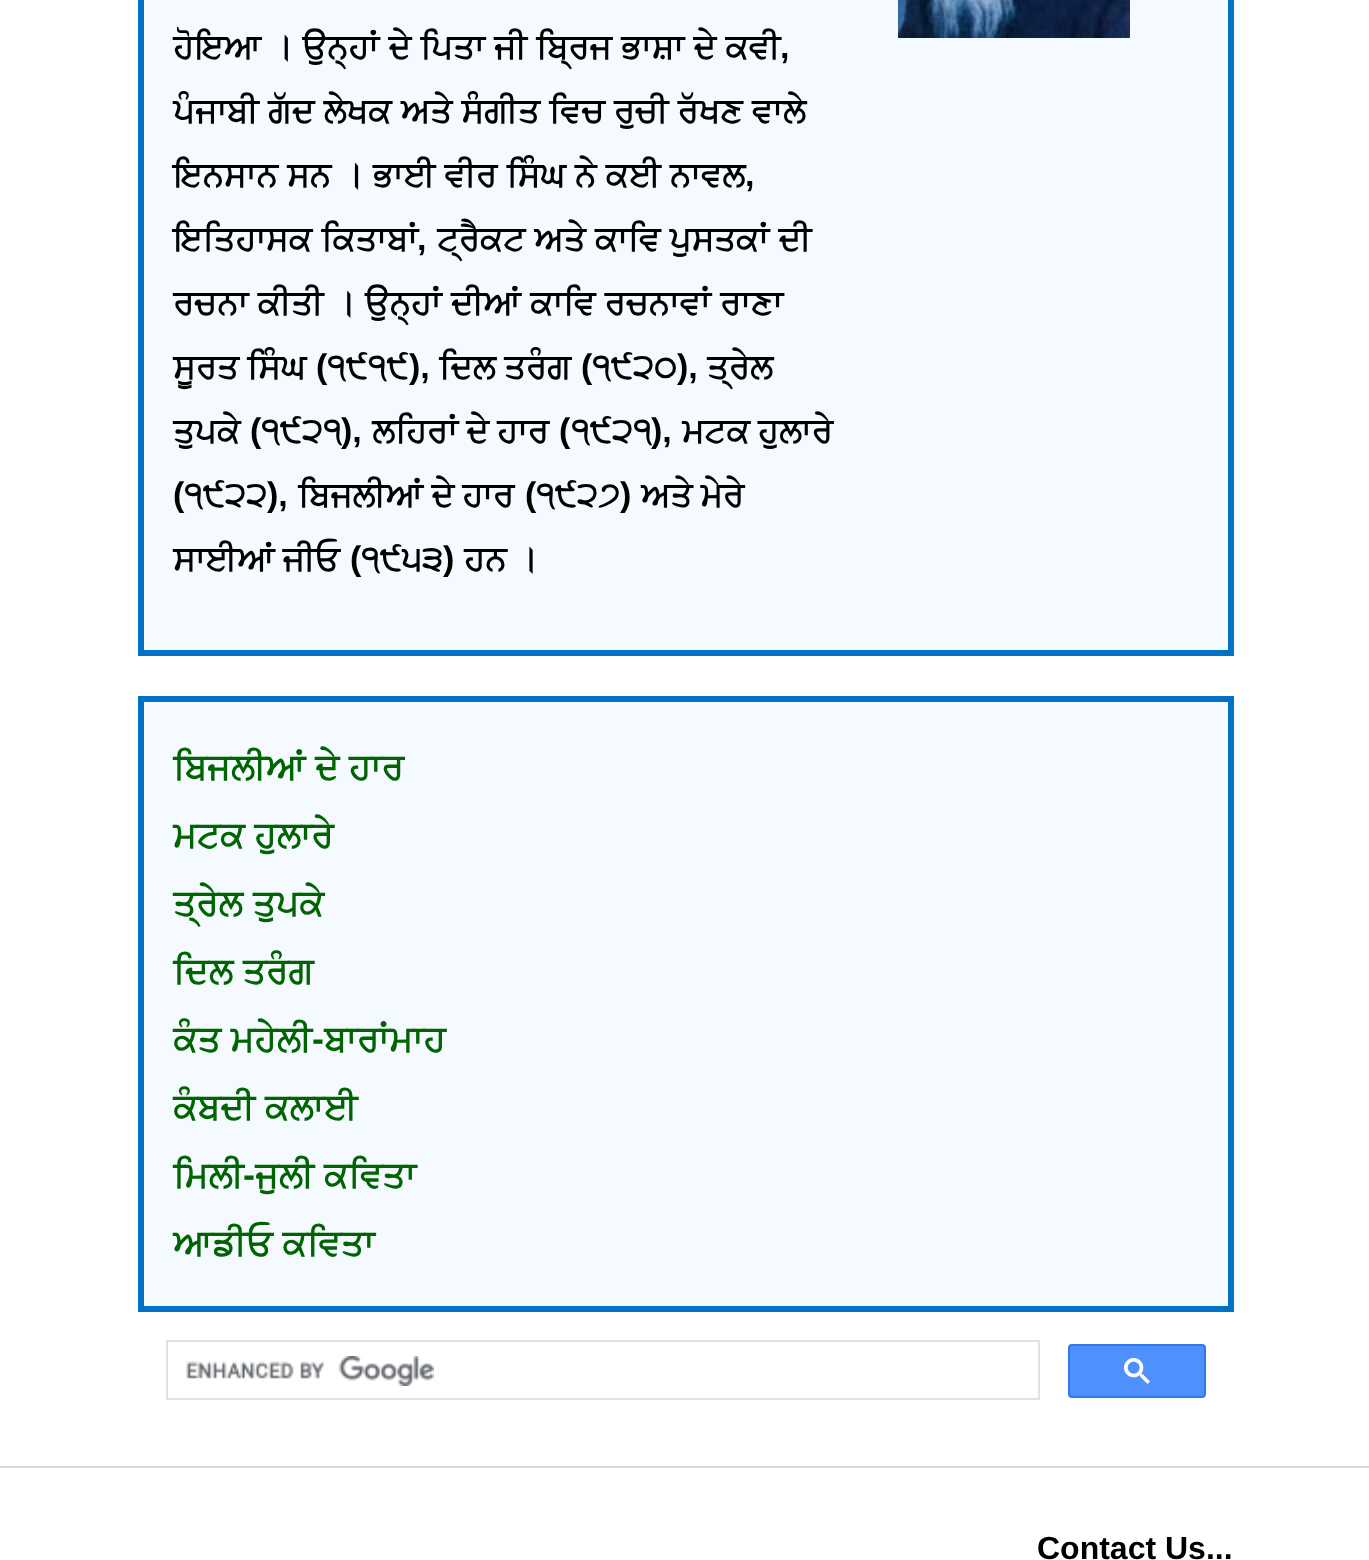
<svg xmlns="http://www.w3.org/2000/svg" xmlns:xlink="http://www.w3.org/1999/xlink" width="1369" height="1560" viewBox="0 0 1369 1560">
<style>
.cls-1{font:bold 34px FreeSans;fill:#000000}
.cls-2{font:bold 34px Liberation Sans;fill:#000000}
.cls-3{font:bold 36px FreeSans;fill:#006400}
.cls-4{font:bold 36px Liberation Sans;fill:#006400}
.cls-5{font:bold 32px Liberation Sans;fill:#000000}
</style>
<rect width="100%" height="100%" fill="#ffffff"/>
<rect fill="#f4faff" stroke="#0072c6" stroke-width="6" x="141" y="-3" width="1090" height="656"/>
<image xlink:href="image0.png" x="898" y="0" width="232" height="38"/>
<rect fill="#f4faff" stroke="#0072c6" stroke-width="6" x="141" y="699" width="1090" height="610"/>
<rect fill="none" stroke="#dfe1e5" stroke-width="2" x="167" y="1341" width="872" height="58"/>
<image xlink:href="image1.png" x="186" y="1356" width="248" height="30"/>
<rect fill="#4d90fe" stroke="#3079ed" stroke-width="2" x="1069" y="1345" width="136" height="52" rx="3"/>
<image xlink:href="image2.png" x="1124" y="1358" width="26" height="26"/>
<rect fill="#d7d7d7" x="0" y="1466" width="1369" height="2"/>
<text class="cls-1" x="173" y="58" word-spacing="1">ਹੋਇਆ । ਉਨ੍ਹਾਂ ਦੇ ਪਿਤਾ ਜੀ ਬ੍ਰਿਜ ਭਾਸ਼ਾ ਦੇ ਕਵੀ</text>
<text class="cls-2" x="780" y="58">,</text>
<text class="cls-1"><tspan x="173" y="122" word-spacing="1">ਪੰਜਾਬੀ ਗੱਦ ਲੇਖਕ ਅਤੇ ਸੰਗੀਤ ਵਿਚ ਰੁਚੀ ਰੱਖਣ ਵਾਲੇ</tspan><tspan x="173" y="186" word-spacing="1">ਇਨਸਾਨ ਸਨ । ਭਾਈ ਵੀਰ ਸਿੰਘ ਨੇ ਕਈ ਨਾਵਲ</tspan></text>
<text class="cls-2" x="745" y="186">,</text>
<text class="cls-1" x="173" y="250" word-spacing="1">ਇਤਿਹਾਸਕ ਕਿਤਾਬਾਂ</text>
<text class="cls-2" x="417" y="250">,</text>
<text class="cls-1" x="437" y="250" word-spacing="1">ਟ੍ਰੈਕਟ ਅਤੇ ਕਾਵਿ ਪੁਸਤਕਾਂ ਦੀ</text>
<text class="cls-1"><tspan x="173" y="314" word-spacing="1">ਰਚਨਾ ਕੀਤੀ । ਉਨ੍ਹਾਂ ਦੀਆਂ ਕਾਵਿ ਰਚਨਾਵਾਂ ਰਾਣਾ</tspan><tspan x="173" y="378">ਸੂਰਤ ਸਿੰਘ</tspan></text>
<text class="cls-2" x="316" y="378">(</text>
<text class="cls-1" x="327" y="378">੧੯੧੯</text>
<text class="cls-2" x="409" y="378">),</text>
<text class="cls-1" x="439" y="378">ਦਿਲ ਤਰੰਗ</text>
<text class="cls-2" x="581" y="378">(</text>
<text class="cls-1" x="592" y="378">੧੯੨੦</text>
<text class="cls-2" x="677" y="378">),</text>
<text class="cls-1" x="707" y="378">ਤ੍ਰੇਲ</text>
<text class="cls-1" x="173" y="442">ਤੁਪਕੇ</text>
<text class="cls-2" x="250" y="442">(</text>
<text class="cls-1" x="261" y="442">੧੯੨੧</text>
<text class="cls-2" x="341" y="442">),</text>
<text class="cls-1" x="372" y="442">ਲਹਿਰਾਂ ਦੇ ਹਾਰ</text>
<text class="cls-2" x="559" y="442">(</text>
<text class="cls-1" x="571" y="442">੧੯੨੧</text>
<text class="cls-2" x="651" y="442">),</text>
<text class="cls-1" x="682" y="442">ਮਟਕ ਹੁਲਾਰੇ</text>
<text class="cls-2" x="173" y="506">(</text>
<text class="cls-1" x="184" y="506">੧੯੨੨</text>
<text class="cls-2" x="267" y="506">),</text>
<text class="cls-1" x="298" y="506">ਬਿਜਲੀਆਂ ਦੇ ਹਾਰ</text>
<text class="cls-2" x="525" y="506">(</text>
<text class="cls-1" x="536" y="506">੧੯੨੭</text>
<text class="cls-2" x="620" y="506">)</text>
<text class="cls-1" x="641" y="506">ਅਤੇ ਮੇਰੇ</text>
<text class="cls-1" x="173" y="570">ਸਾਈਆਂ ਜੀਓ</text>
<text class="cls-2" x="350" y="570">(</text>
<text class="cls-1" x="361" y="570">੧੯੫੩</text>
<text class="cls-2" x="443" y="570">)</text>
<text class="cls-1" x="464" y="570">ਹਨ ।</text>
<text class="cls-3"><tspan x="173" y="779" word-spacing="1">ਬਿਜਲੀਆਂ ਦੇ ਹਾਰ</tspan><tspan x="173" y="847" word-spacing="1">ਮਟਕ ਹੁਲਾਰੇ</tspan><tspan x="173" y="915" word-spacing="1">ਤ੍ਰੇਲ ਤੁਪਕੇ</tspan><tspan x="173" y="983" word-spacing="1">ਦਿਲ ਤਰੰਗ</tspan><tspan x="173" y="1051" word-spacing="1">ਕੰਤ ਮਹੇਲੀ</tspan></text>
<text class="cls-4" x="312" y="1051">-</text>
<text class="cls-3" x="324" y="1051">ਬਾਰਾਂਮਾਹ</text>
<text class="cls-3"><tspan x="173" y="1119" word-spacing="1">ਕੰਬਦੀ ਕਲਾਈ</tspan><tspan x="173" y="1187">ਮਿਲੀ</tspan></text>
<text class="cls-4" x="243" y="1187">-</text>
<text class="cls-3" x="255" y="1187" word-spacing="1">ਜੁਲੀ ਕਵਿਤਾ</text>
<text class="cls-3" x="173" y="1255" word-spacing="1">ਆਡੀਓ ਕਵਿਤਾ</text>
<text class="cls-5" x="1037" y="1559">Contact Us...</text>
</svg>
